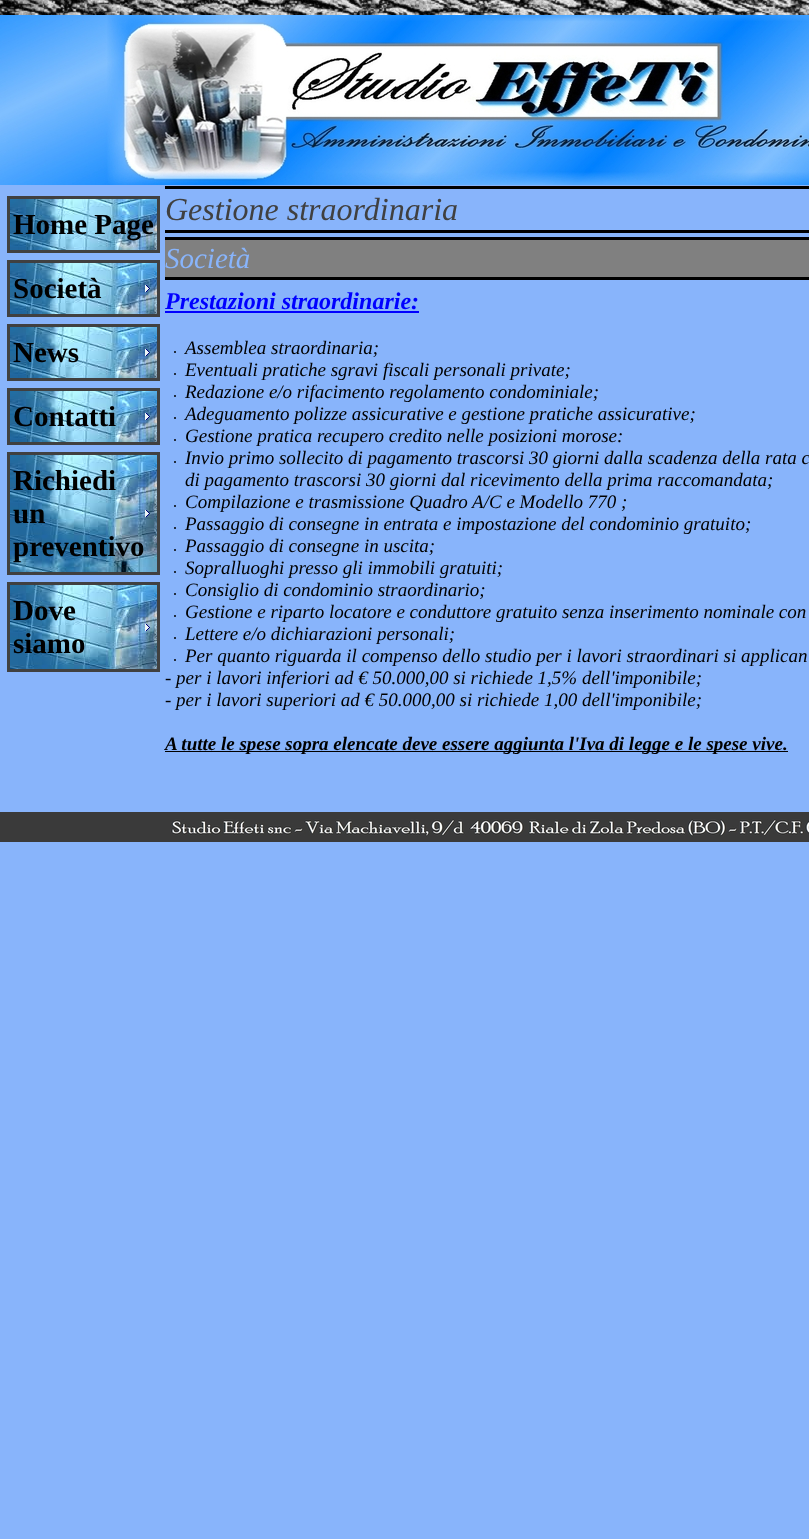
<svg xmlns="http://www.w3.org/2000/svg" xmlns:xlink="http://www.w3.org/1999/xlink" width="809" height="1539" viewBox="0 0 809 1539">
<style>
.cls-1{font:bold 29px Liberation Serif;fill:#000000}
.cls-2{font:italic 32px Liberation Serif;fill:#404040}
.cls-3{font:italic 29px Liberation Serif;fill:#88b4fb}
.cls-4{font:italic bold 24px Liberation Serif;fill:#0000ff}
.cls-5{font:italic 19px Liberation Serif;fill:#000000}
.cls-6{font:italic bold 19px Liberation Serif;fill:#000000}
</style>
<rect width="100%" height="100%" fill="#88b4fb"/>
<image xlink:href="image0.png" x="0" y="0" width="809" height="15"/>
<image xlink:href="image1.png" x="0" y="15" width="809" height="170"/>
<image xlink:href="image2.png" x="10" y="199" width="147" height="51"/>
<rect fill="none" stroke="#404040" stroke-width="3" x="8.5" y="197.5" width="150" height="54"/>
<image xlink:href="image2.png" x="10" y="263" width="147" height="51"/>
<rect fill="none" stroke="#404040" stroke-width="3" x="8.5" y="261.5" width="150" height="54"/>
<image xlink:href="image3.png" x="145" y="285" width="5" height="7"/>
<image xlink:href="image2.png" x="10" y="327" width="147" height="51"/>
<rect fill="none" stroke="#404040" stroke-width="3" x="8.5" y="325.5" width="150" height="54"/>
<image xlink:href="image3.png" x="145" y="349" width="5" height="7"/>
<image xlink:href="image2.png" x="10" y="391" width="147" height="51"/>
<rect fill="none" stroke="#404040" stroke-width="3" x="8.5" y="389.5" width="150" height="54"/>
<image xlink:href="image3.png" x="145" y="413" width="5" height="7"/>
<image xlink:href="image4.png" x="10" y="455" width="147" height="117"/>
<rect fill="none" stroke="#404040" stroke-width="3" x="8.5" y="453.5" width="150" height="120"/>
<image xlink:href="image5.png" x="145" y="510" width="5" height="7"/>
<image xlink:href="image6.png" x="10" y="585" width="147" height="84"/>
<rect fill="none" stroke="#404040" stroke-width="3" x="8.5" y="583.5" width="150" height="87"/>
<image xlink:href="image7.png" x="145" y="624" width="5" height="7"/>
<rect fill="#000000" x="165" y="186" width="644" height="3"/>
<rect fill="#000000" x="165" y="230" width="644" height="3"/>
<rect fill="#808080" x="165" y="240" width="644" height="37"/>
<rect fill="#000000" x="165" y="237" width="644" height="3"/>
<rect fill="#000000" x="165" y="277" width="644" height="3"/>
<rect fill="#0000ff" x="165" y="311" width="254" height="2"/>
<circle fill="#000000" cx="175" cy="352" r="1"/>
<circle fill="#000000" cx="175" cy="374" r="1"/>
<circle fill="#000000" cx="175" cy="396" r="1"/>
<circle fill="#000000" cx="175" cy="418" r="1"/>
<circle fill="#000000" cx="175" cy="440" r="1"/>
<circle fill="#000000" cx="175" cy="462" r="1"/>
<circle fill="#000000" cx="175" cy="506" r="1"/>
<circle fill="#000000" cx="175" cy="528" r="1"/>
<circle fill="#000000" cx="175" cy="550" r="1"/>
<circle fill="#000000" cx="175" cy="572" r="1"/>
<circle fill="#000000" cx="175" cy="594" r="1"/>
<circle fill="#000000" cx="175" cy="616" r="1"/>
<circle fill="#000000" cx="175" cy="638" r="1"/>
<circle fill="#000000" cx="175" cy="660" r="1"/>
<rect fill="#000000" x="165" y="751" width="623" height="1"/>
<rect fill="#3a3a3a" x="0" y="812" width="809" height="30"/>
<image xlink:href="image8.png" x="170" y="819" width="639" height="18"/>
<text class="cls-1" x="13" y="234">Home Page</text>
<text class="cls-1" x="13" y="298">Società</text>
<text class="cls-1" x="13" y="362">News</text>
<text class="cls-1" x="13" y="426">Contatti</text>
<text class="cls-1"><tspan x="13" y="490">Richiedi</tspan><tspan x="13" y="523">un</tspan><tspan x="13" y="556">preventivo</tspan></text>
<text class="cls-1"><tspan x="13" y="620">Dove</tspan><tspan x="13" y="653">siamo</tspan></text>
<text class="cls-2" x="165" y="220">Gestione straordinaria</text>
<text class="cls-3" x="165" y="268">Società</text>
<text class="cls-4" x="165" y="309">Prestazioni straordinarie:</text>
<text class="cls-5"><tspan x="185" y="354">Assemblea straordinaria;</tspan><tspan x="185" y="376">Eventuali pratiche sgravi fiscali personali private;</tspan><tspan x="185" y="398">Redazione e/o rifacimento regolamento condominiale;</tspan><tspan x="185" y="420">Adeguamento polizze assicurative e gestione pratiche assicurative;</tspan><tspan x="185" y="442">Gestione pratica recupero credito nelle posizioni morose:</tspan><tspan x="185" y="464">Invio primo sollecito di pagamento trascorsi 30 giorni dalla scadenza della rata c</tspan><tspan x="185" y="486">di pagamento trascorsi 30 giorni dal ricevimento della prima raccomandata;</tspan><tspan x="185" y="508">Compilazione e trasmissione Quadro A/C e Modello 770 ;</tspan><tspan x="185" y="530">Passaggio di consegne in entrata e impostazione del condominio gratuito;</tspan><tspan x="185" y="552">Passaggio di consegne in uscita;</tspan><tspan x="185" y="574">Sopralluoghi presso gli immobili gratuiti;</tspan><tspan x="185" y="596">Consiglio di condominio straordinario;</tspan><tspan x="185" y="618">Gestione e riparto locatore e conduttore gratuito senza inserimento nominale con</tspan><tspan x="185" y="640">Lettere e/o dichiarazioni personali;</tspan><tspan x="185" y="662">Per quanto riguarda il compenso dello studio per i lavori straordinari si applican</tspan></text>
<text class="cls-5"><tspan x="165" y="684">- per i lavori inferiori ad € 50.000,00 si richiede 1,5% dell'imponibile;</tspan><tspan x="165" y="706">- per i lavori superiori ad € 50.000,00 si richiede 1,00 dell'imponibile;</tspan></text>
<text class="cls-6" x="165" y="750">A tutte le spese sopra elencate deve essere aggiunta l'Iva di legge e le spese vive.</text>
</svg>
